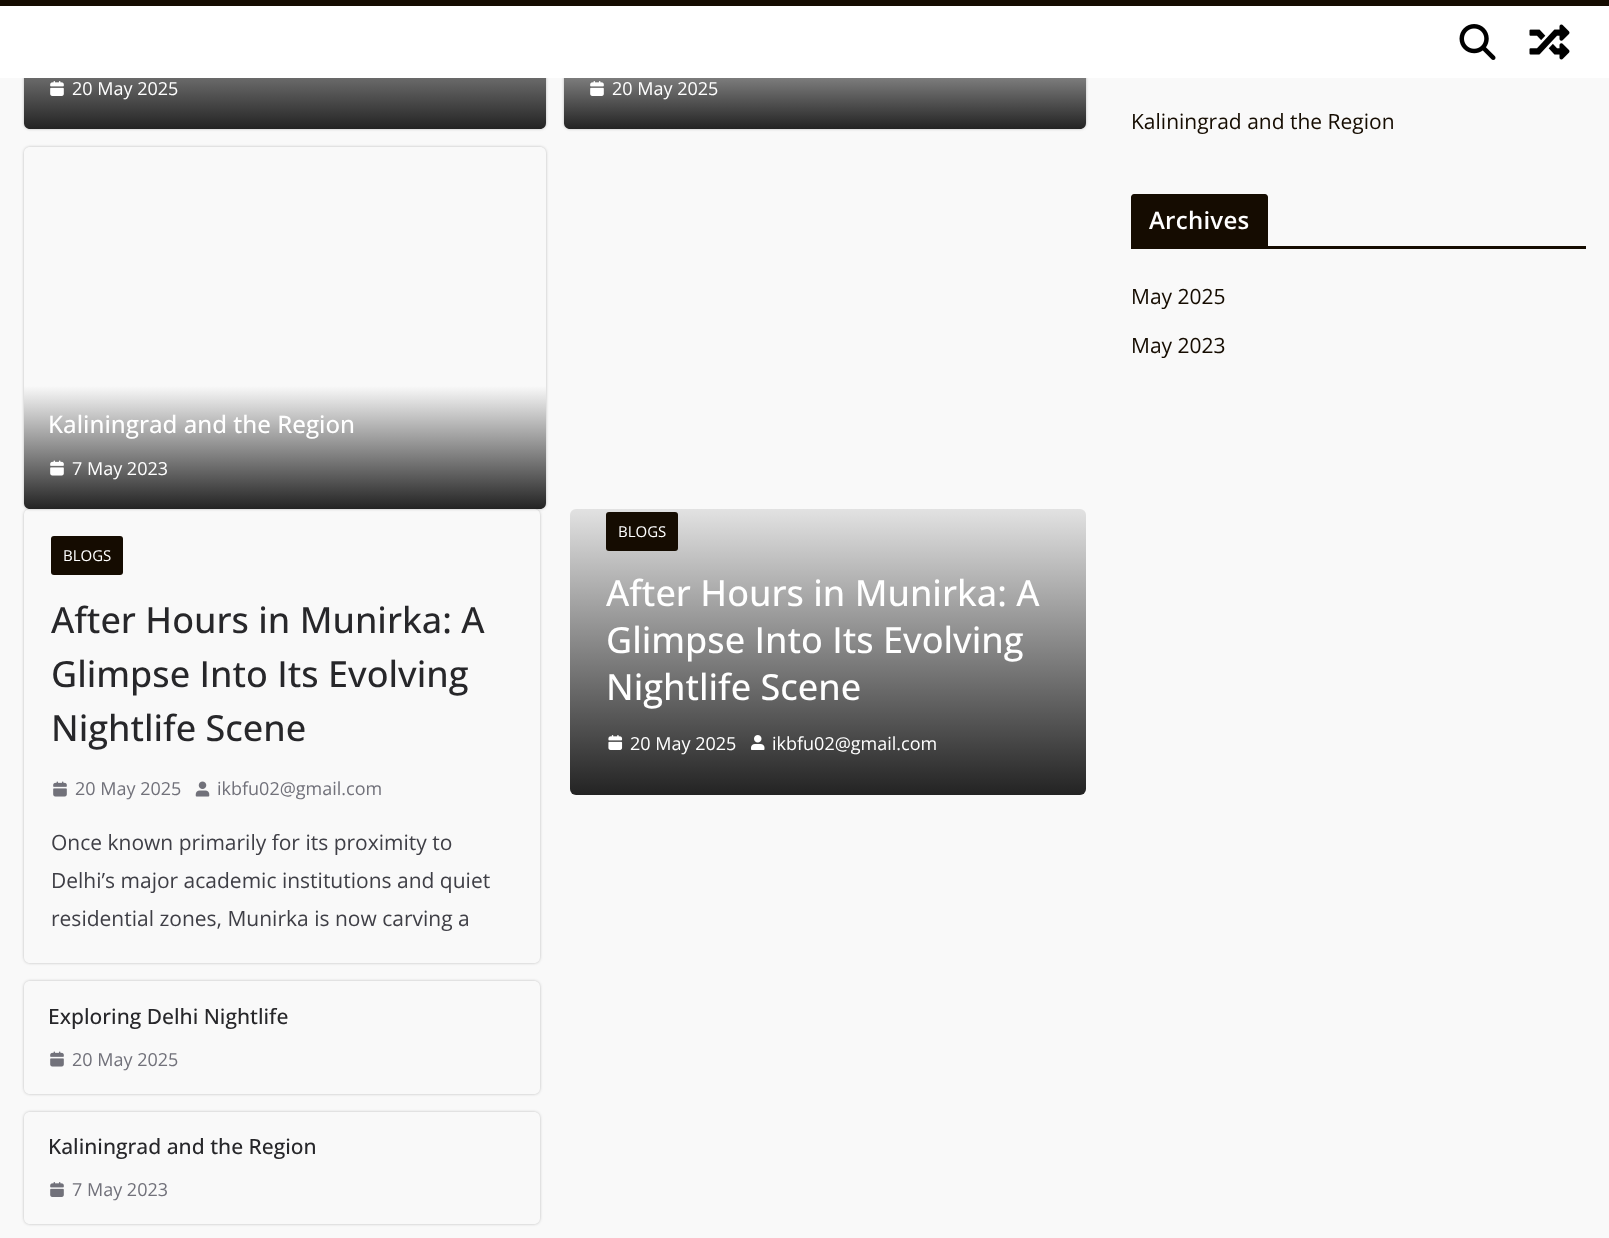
<svg xmlns="http://www.w3.org/2000/svg" xmlns:xlink="http://www.w3.org/1999/xlink" width="1609" height="1238" viewBox="0 0 1609 1238">
<style>
.cls-1{font:18px Open Sans;fill:#ffffff}
.cls-2{font:500 24px Open Sans;fill:#ffffff}
.cls-3{font:15px Open Sans;fill:#ffffff}
.cls-4{font:500 36px Open Sans;fill:#27272a}
.cls-5{font:18px Open Sans;fill:#71717a}
.cls-6{font:21px Open Sans;fill:#3f3f46}
.cls-7{font:500 21px Open Sans;fill:#27272a}
.cls-8{font:500 36px Open Sans;fill:#ffffff}
.cls-9{font:21px Open Sans;fill:#150c01}
.cls-10{font:600 24px Open Sans;letter-spacing:0.25px;fill:#ffffff}
</style>
<defs>
<clipPath id="clip1"><path d="M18 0H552V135H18ZM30-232H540C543.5-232 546-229.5 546-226V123C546 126.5 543.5 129 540 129H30C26.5 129 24 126.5 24 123V-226C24-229.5 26.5-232 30-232Z" clip-rule="evenodd"/></clipPath>
<linearGradient id="g1" gradientUnits="userSpaceOnUse" x1="285" y1="-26" x2="285" y2="129"><stop offset="0" stop-color="#232323" stop-opacity="0"/><stop offset="1" stop-color="#232323"/></linearGradient>
<clipPath id="clip2"><path d="M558 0H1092V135H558ZM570-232H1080C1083.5-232 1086-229.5 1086-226V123C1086 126.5 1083.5 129 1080 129H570C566.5 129 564 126.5 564 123V-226C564-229.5 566.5-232 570-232Z" clip-rule="evenodd"/></clipPath>
<linearGradient id="g2" gradientUnits="userSpaceOnUse" x1="825" y1="6" x2="825" y2="129"><stop offset="0" stop-color="#232323" stop-opacity="0"/><stop offset="1" stop-color="#232323"/></linearGradient>
<clipPath id="clip3"><path d="M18 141H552V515H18ZM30 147H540C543.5 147 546 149.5 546 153V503C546 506.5 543.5 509 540 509H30C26.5 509 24 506.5 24 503V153C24 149.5 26.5 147 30 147Z" clip-rule="evenodd"/></clipPath>
<clipPath id="clip4"><path d="M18 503H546V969H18ZM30 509H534C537.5 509 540 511.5 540 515V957C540 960.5 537.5 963 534 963H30C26.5 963 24 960.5 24 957V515C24 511.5 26.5 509 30 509Z" clip-rule="evenodd"/></clipPath>
<linearGradient id="g3" gradientUnits="userSpaceOnUse" x1="285" y1="386" x2="285" y2="509"><stop offset="0" stop-color="#232323" stop-opacity="0"/><stop offset="1" stop-color="#232323"/></linearGradient>
<clipPath id="clip5"><path d="M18 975H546V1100H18ZM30 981H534C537.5 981 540 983.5 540 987V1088C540 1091.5 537.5 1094 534 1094H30C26.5 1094 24 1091.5 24 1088V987C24 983.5 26.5 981 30 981Z" clip-rule="evenodd"/></clipPath>
<clipPath id="clip6"><path d="M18 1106H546V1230H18ZM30 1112H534C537.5 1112 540 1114.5 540 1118V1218C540 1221.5 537.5 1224 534 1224H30C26.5 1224 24 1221.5 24 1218V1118C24 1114.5 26.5 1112 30 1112Z" clip-rule="evenodd"/></clipPath>
<linearGradient id="g4" gradientUnits="userSpaceOnUse" x1="828" y1="476" x2="828" y2="795"><stop offset="0" stop-color="#f8f8f8"/><stop offset="1" stop-color="#232323"/></linearGradient>
</defs>
<rect width="100%" height="100%" fill="#f9f9f9"/>
<g clip-path="url(#clip1)">
<rect fill="#000000" fill-opacity="0.24" filter="blur(1.5px)" x="24" y="-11" width="522" height="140" rx="6"/>
</g>
<path fill="url(#g1)" d="M24-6H546V123C546 126.5 543.5 129 540 129H30C26.5 129 24 126.5 24 123Z"/>
<g clip-path="url(#clip2)">
<rect fill="#000000" fill-opacity="0.24" filter="blur(1.5px)" x="564" y="-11" width="522" height="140" rx="6"/>
</g>
<path fill="url(#g2)" d="M564 6H1086V123C1086 126.5 1083.5 129 1080 129H570C566.5 129 564 126.5 564 123Z"/>
<rect fill="#ffffff" x="0" y="6" width="1609" height="72"/>
<rect fill="#150c01" x="0" y="0" width="1609" height="6"/>
<image xlink:href="image0.png" x="1459" y="24" width="37" height="36"/>
<image xlink:href="image1.png" x="1529" y="24" width="41" height="36"/>
<image xlink:href="image2.png" x="50" y="81" width="14" height="15"/>
<image xlink:href="image3.png" x="590" y="81" width="14" height="15"/>
<g clip-path="url(#clip3)">
<rect fill="#000000" fill-opacity="0.24" filter="blur(1.5px)" x="24" y="147" width="522" height="362" rx="6"/>
</g>
<g clip-path="url(#clip4)">
<rect fill="#000000" fill-opacity="0.24" filter="blur(1.5px)" x="24" y="509" width="516" height="454" rx="6"/>
</g>
<path fill="url(#g3)" d="M24 386H546V503C546 506.5 543.5 509 540 509H30C26.5 509 24 506.5 24 503Z"/>
<image xlink:href="image4.png" x="50" y="460" width="14" height="16"/>
<rect fill="#150c01" x="51" y="536" width="72" height="39" rx="3"/>
<image xlink:href="image5.png" x="53" y="781" width="14" height="16"/>
<image xlink:href="image6.png" x="195" y="781" width="15" height="16"/>
<g clip-path="url(#clip5)">
<rect fill="#000000" fill-opacity="0.24" filter="blur(1.5px)" x="24" y="981" width="516" height="113" rx="6"/>
</g>
<image xlink:href="image5.png" x="50" y="1051" width="14" height="16"/>
<g clip-path="url(#clip6)">
<rect fill="#000000" fill-opacity="0.24" filter="blur(1.5px)" x="24" y="1112" width="516" height="112" rx="6"/>
</g>
<image xlink:href="image7.png" x="50" y="1182" width="14" height="15"/>
<rect fill="url(#g4)" x="570" y="509" width="516" height="286" rx="6"/>
<rect fill="#150c01" x="606" y="512" width="72" height="39" rx="3"/>
<image xlink:href="image8.png" x="608" y="735" width="15" height="15"/>
<image xlink:href="image9.png" x="751" y="735" width="14" height="15"/>
<rect fill="#150c01" x="1131" y="246" width="455" height="3"/>
<path fill="#150c01" d="M1134 194H1265C1266.5 194 1268 195.5 1268 197V246H1131V197C1131 195.5 1132.5 194 1134 194Z"/>
<text class="cls-1" x="72" y="95">20 May 2025</text>
<text class="cls-1" x="612" y="95">20 May 2025</text>
<text class="cls-2" x="48" y="433">Kaliningrad and the Region</text>
<text class="cls-1" x="72" y="475">7 May 2023</text>
<text class="cls-3" x="63" y="561">BLOGS</text>
<text class="cls-4"><tspan x="51" y="633">After Hours in Munirka: A</tspan><tspan x="51" y="687">Glimpse Into Its Evolving</tspan><tspan x="51" y="741">Nightlife Scene</tspan></text>
<text class="cls-5" x="75" y="795">20 May 2025</text>
<text class="cls-5" x="217" y="795">ikbfu02@gmail.com</text>
<text class="cls-6"><tspan x="51" y="850">Once known primarily for its proximity to</tspan><tspan x="51" y="888">Delhi’s major academic institutions and quiet</tspan><tspan x="51" y="926">residential zones, Munirka is now carving a</tspan></text>
<text class="cls-7" x="48" y="1024">Exploring Delhi Nightlife</text>
<text class="cls-5" x="72" y="1066">20 May 2025</text>
<text class="cls-7" x="48" y="1154">Kaliningrad and the Region</text>
<text class="cls-5" x="72" y="1196">7 May 2023</text>
<text class="cls-3" x="618" y="537">BLOGS</text>
<text class="cls-8"><tspan x="606" y="606">After Hours in Munirka: A</tspan><tspan x="606" y="653">Glimpse Into Its Evolving</tspan><tspan x="606" y="700">Nightlife Scene</tspan></text>
<text class="cls-1" x="630" y="750">20 May 2025</text>
<text class="cls-1" x="772" y="750">ikbfu02@gmail.com</text>
<text class="cls-9" x="1131" y="129">Kaliningrad and the Region</text>
<text class="cls-10" x="1149" y="229">Archives</text>
<text class="cls-9" x="1131" y="304">May 2025</text>
<text class="cls-9" x="1131" y="353">May 2023</text>
</svg>
